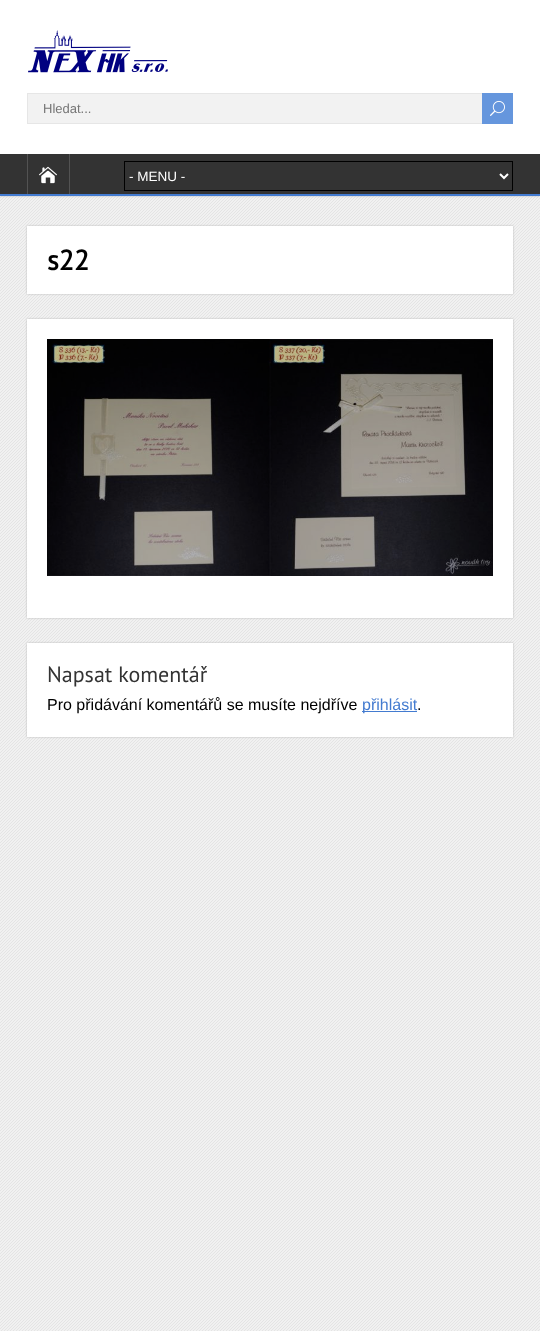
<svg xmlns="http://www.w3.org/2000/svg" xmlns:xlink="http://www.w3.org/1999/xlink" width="540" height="1331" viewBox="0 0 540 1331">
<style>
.cls-1{font:13px Liberation Sans;fill:#757575}
.cls-2{font:13.5px Liberation Sans;fill:#ffffff}
.cls-3{font:bold 28px PT Sans;fill:#000000}
.cls-4{font:22px PT Sans;fill:#333333}
.cls-5{font:16px Liberation Sans;fill:#000000}
.cls-6{font:16px Liberation Sans;fill:#437bd0}
</style>
<rect width="100%" height="100%" fill="#f1f1f1"/>
<image xlink:href="image4.png" x="0" y="196" width="540" height="1135"/>
<rect fill="#bbbbbb" filter="blur(1px)" x="0" y="0" width="540" height="196"/>
<rect fill="#ffffff" x="0" y="0" width="540" height="154"/>
<image xlink:href="image0.png" x="28" y="30" width="140" height="43"/>
<rect fill="#f2f2f2" x="28" y="94" width="454" height="29"/>
<rect fill="none" stroke="#e6e6e6" x="27.5" y="93.5" width="482" height="30"/>
<rect fill="#6596dd" x="482" y="93" width="31" height="31"/>
<image xlink:href="image1.png" x="490" y="100" width="15" height="16"/>
<rect fill="#333333" x="0" y="154" width="540" height="40"/>
<rect fill="#437bd0" x="0" y="194" width="540" height="2"/>
<rect fill="#535353" x="69" y="154" width="1" height="40"/>
<rect fill="#535353" x="27" y="154" width="1" height="40"/>
<image xlink:href="image2.png" x="39" y="166" width="18" height="18"/>
<rect fill="none" stroke="#000000" x="124.5" y="161.5" width="388" height="29"/>
<path fill="none" stroke="#ffffff" stroke-width="2" d="M500 174L504 178L508 174"/>
<rect fill="#bbbbbb" filter="blur(1px)" x="27" y="226" width="486" height="68"/>
<rect fill="#ffffff" x="27" y="226" width="486" height="68"/>
<rect fill="#bbbbbb" filter="blur(1px)" x="27" y="319" width="486" height="299"/>
<rect fill="#ffffff" x="27" y="319" width="486" height="299"/>
<image xlink:href="image3.png" x="47" y="339" width="446" height="237"/>
<rect fill="#bbbbbb" filter="blur(1px)" x="27" y="643" width="486" height="94"/>
<rect fill="#ffffff" x="27" y="643" width="486" height="94"/>
<rect fill="#437bd0" x="362" y="711" width="55" height="1"/>
<text class="cls-1" x="43" y="113">Hledat...</text>
<text class="cls-2" x="129" y="181">- MENU -</text>
<text class="cls-3" x="47" y="270">s22</text>
<text class="cls-4" x="47" y="682">Napsat komentář</text>
<text class="cls-5" x="47" y="710">Pro přidávání komentářů se musíte nejdříve</text>
<text class="cls-6" x="362" y="710">přihlásit</text>
<text class="cls-5" x="417" y="710">.</text>
</svg>
